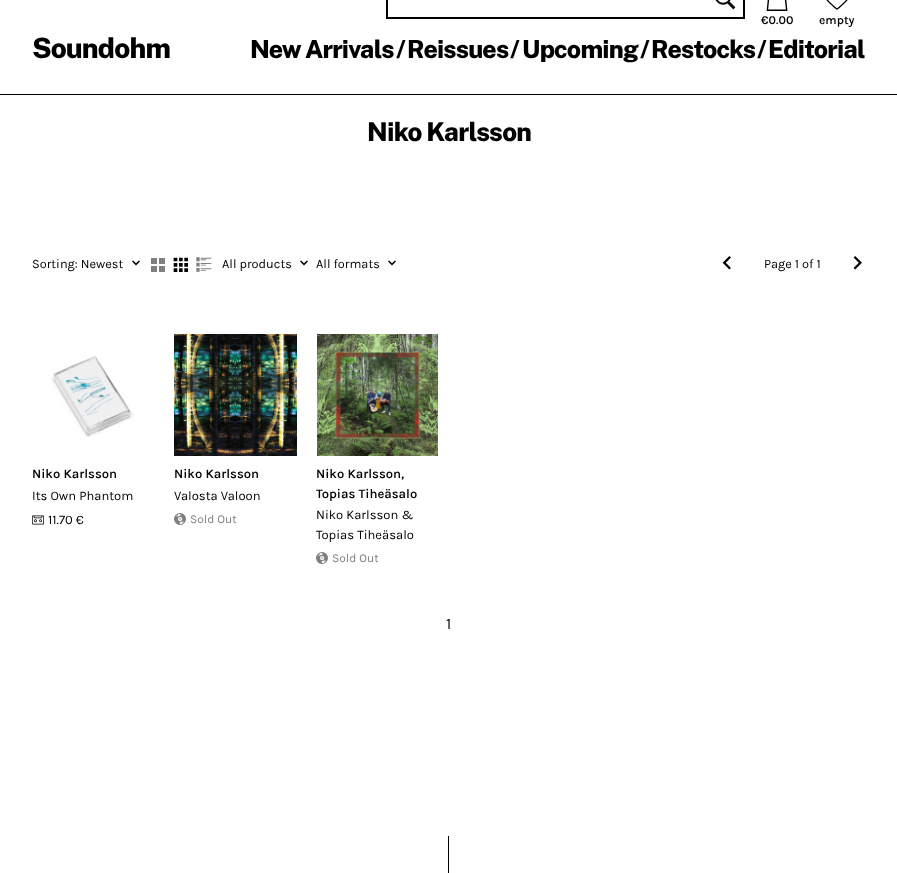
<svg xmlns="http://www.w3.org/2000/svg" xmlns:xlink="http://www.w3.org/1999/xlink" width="897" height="873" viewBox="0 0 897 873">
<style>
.cls-1{font:100 28px Public Sans;letter-spacing:-0.75px;fill:#000000}
.cls-2{font:600 12px Karla;fill:#000000}
.cls-3{font:100 25px Public Sans;letter-spacing:-0.75px;fill:#000000}
.cls-4{font:100 26px Public Sans;letter-spacing:-0.75px;fill:#000000}
.cls-5{font:12.75px Karla;fill:#000000}
.cls-6{font:600 13px Karla;fill:#000000}
.cls-7{font:13px Karla;fill:#000000}
.cls-8{font:12px Karla;fill:#808080}
.cls-9{font:16px Karla;fill:#000000}
</style>
<rect width="100%" height="100%" fill="#ffffff"/>
<rect fill="none" stroke="#000000" stroke-width="2" x="387" y="-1" width="357" height="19"/>
<image xlink:href="image0.png" x="715" y="0" width="21" height="10"/>
<image xlink:href="image1.png" x="766" y="0" width="22" height="11"/>
<image xlink:href="image2.png" x="826" y="0" width="22" height="10"/>
<rect fill="#000000" x="0" y="94" width="897" height="1"/>
<image xlink:href="image3.png" x="132" y="260" width="8" height="6"/>
<image xlink:href="image4.png" x="151" y="258" width="14" height="14"/>
<image xlink:href="image5.png" x="173" y="257" width="15" height="15"/>
<image xlink:href="image6.png" x="196" y="257" width="16" height="15"/>
<image xlink:href="image3.png" x="300" y="260" width="8" height="6"/>
<image xlink:href="image3.png" x="388" y="260" width="8" height="6"/>
<image xlink:href="image7.png" x="722" y="256" width="9" height="14"/>
<image xlink:href="image8.png" x="853" y="256" width="9" height="14"/>
<image xlink:href="image9.png" x="51" y="356" width="83" height="81"/>
<image xlink:href="image10.png" x="32" y="515" width="12" height="10"/>
<image xlink:href="image11.png" x="174" y="334" width="123" height="122"/>
<image xlink:href="image12.png" x="174" y="513" width="12" height="12"/>
<image xlink:href="image13.png" x="317" y="334" width="121" height="122"/>
<image xlink:href="image12.png" x="316" y="552" width="12" height="12"/>
<rect fill="#000000" x="448" y="836" width="1" height="37"/>
<text class="cls-1" x="32" y="58">Soundohm</text>
<text class="cls-2" x="761" y="24">€0.00</text>
<text class="cls-2" x="819" y="24">empty</text>
<text class="cls-3" x="250" y="58">New Arrivals</text>
<text class="cls-3" x="396" y="58">/</text>
<text class="cls-3" x="407" y="58">Reissues</text>
<text class="cls-3" x="510" y="58">/</text>
<text class="cls-3" x="522" y="58">Upcoming</text>
<text class="cls-3" x="640" y="58">/</text>
<text class="cls-3" x="651" y="58">Restocks</text>
<text class="cls-3" x="757" y="58">/</text>
<text class="cls-3" x="768" y="58">Editorial</text>
<text class="cls-4" x="367" y="141">Niko Karlsson</text>
<text class="cls-5" x="32" y="268">Sorting: Newest</text>
<text class="cls-5" x="222" y="268">All products</text>
<text class="cls-5" x="316" y="268">All formats</text>
<text class="cls-5" x="764" y="268">Page 1 of 1</text>
<text class="cls-6" x="32" y="478">Niko Karlsson</text>
<text class="cls-7" x="32" y="500">Its Own Phantom</text>
<text class="cls-7" x="48" y="524">11.70 €</text>
<text class="cls-6" x="174" y="478">Niko Karlsson</text>
<text class="cls-7" x="174" y="500">Valosta Valoon</text>
<text class="cls-8" x="190" y="523">Sold Out</text>
<text class="cls-6"><tspan x="316" y="478">Niko Karlsson,</tspan><tspan x="316" y="498">Topias Tiheäsalo</tspan></text>
<text class="cls-7"><tspan x="316" y="519">Niko Karlsson &amp;</tspan><tspan x="316" y="539">Topias Tiheäsalo</tspan></text>
<text class="cls-8" x="332" y="562">Sold Out</text>
<text class="cls-9" x="446" y="629">1</text>
</svg>
